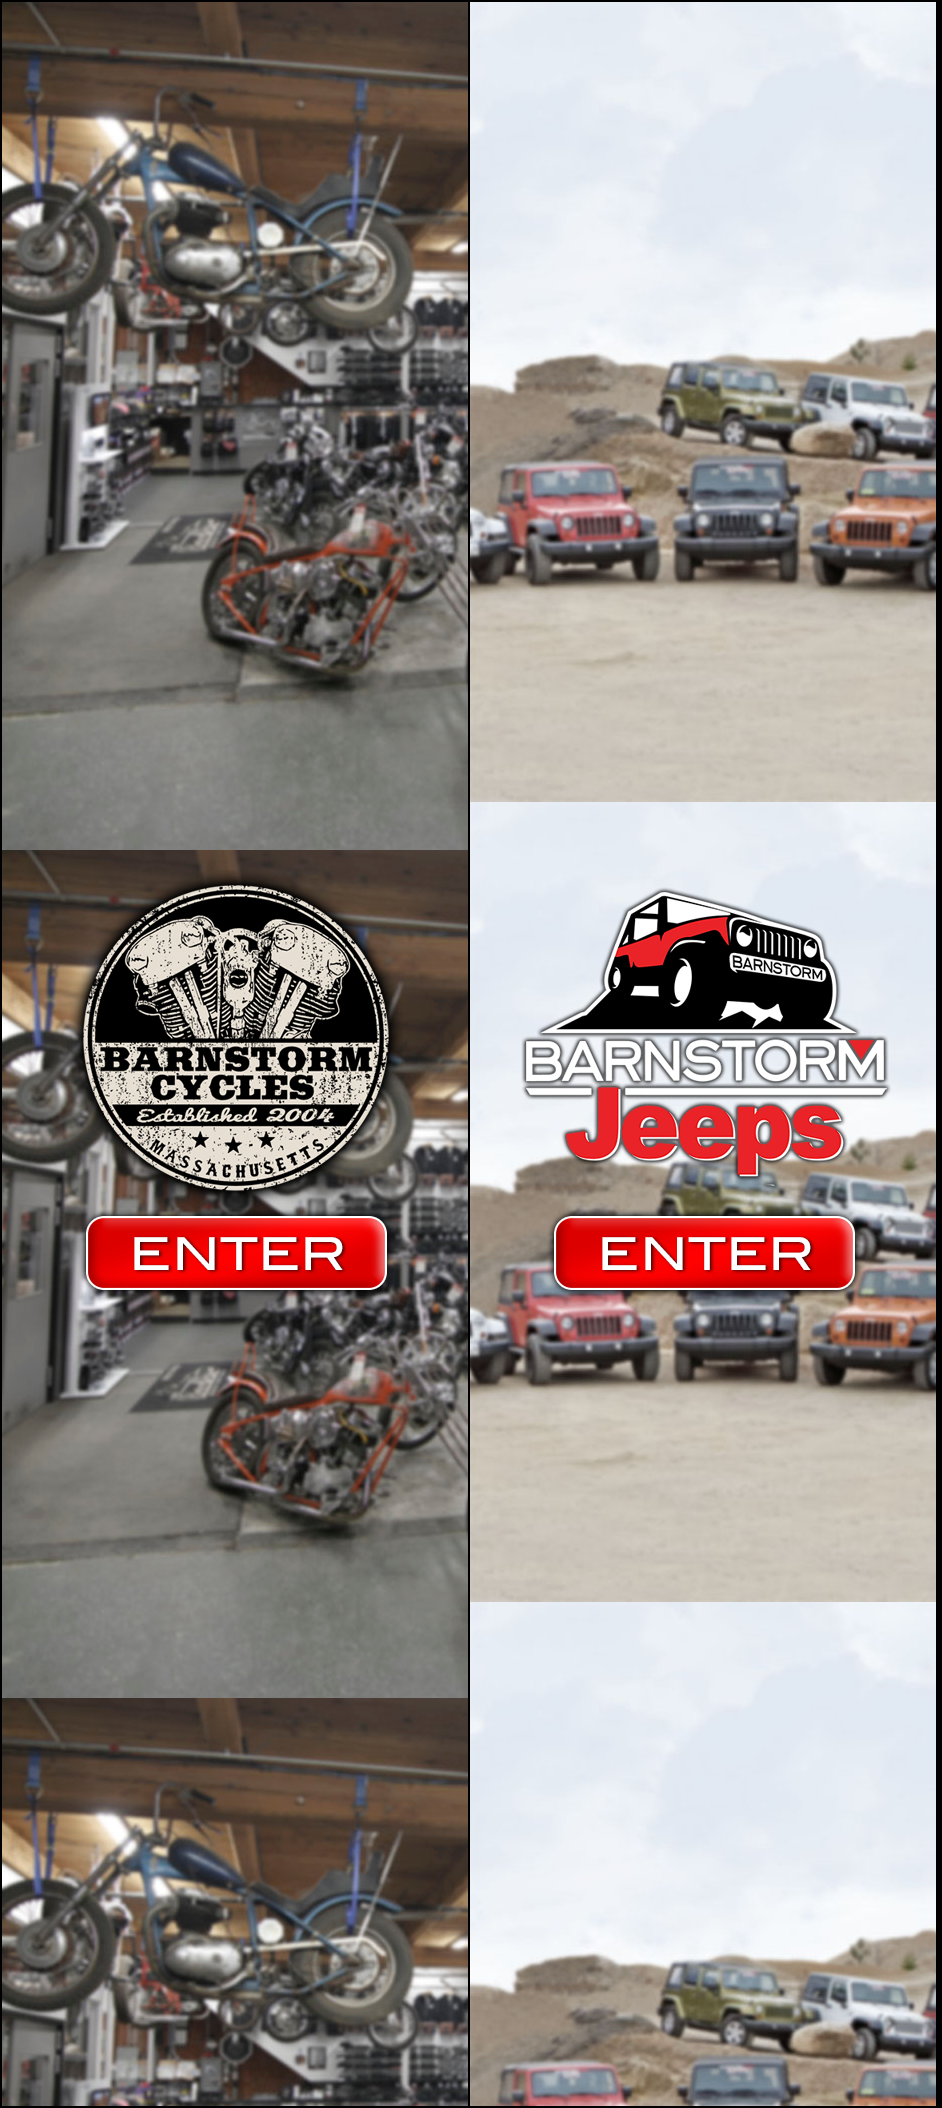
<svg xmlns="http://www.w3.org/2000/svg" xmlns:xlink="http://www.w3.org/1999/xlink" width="942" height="2108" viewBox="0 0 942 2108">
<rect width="100%" height="100%" fill="#000000"/>
<image xlink:href="image0.png" x="2" y="2" width="466" height="2104"/>
<image xlink:href="image1.png" x="67" y="870" width="336" height="426"/>
<image xlink:href="image2.png" x="470" y="2" width="466" height="2104"/>
<image xlink:href="image3.png" x="521" y="887" width="370" height="409"/>
</svg>
